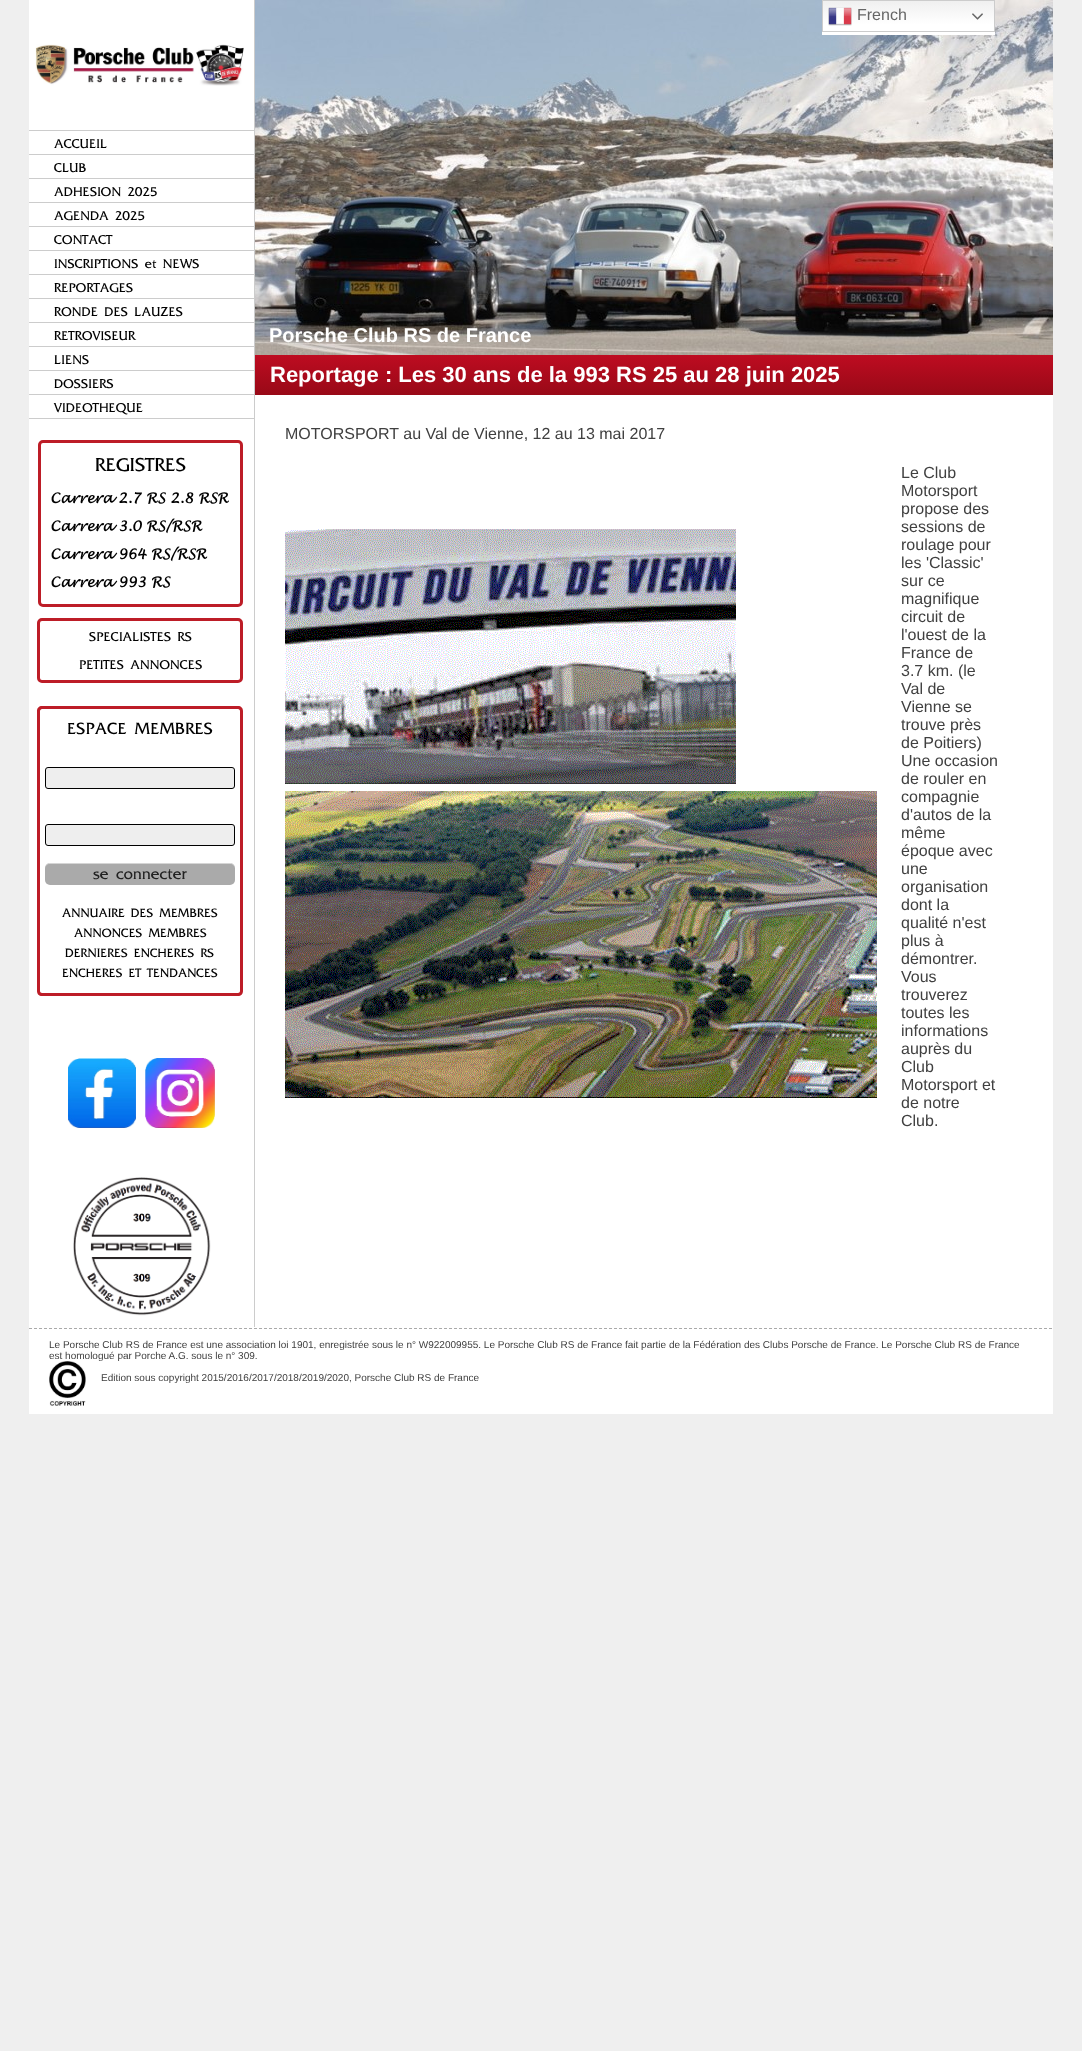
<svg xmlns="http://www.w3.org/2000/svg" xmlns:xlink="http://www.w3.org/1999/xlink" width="1082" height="2051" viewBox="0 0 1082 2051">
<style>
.cls-1{font:16px Liberation Sans;fill:#666666}
.cls-2{font:100 14.75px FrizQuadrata;fill:#000000}
.cls-3{font:100 21.5px FrizQuadrata;fill:#000000}
.cls-4{font:italic bold 14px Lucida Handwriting;fill:#000000}
.cls-5{font:100 18.75px FrizQuadrata;fill:#000000}
.cls-6{font:100 18px FrizQuadrata;fill:#222222}
.cls-7{font:100 14px FrizQuadrata;fill:#000000}
.cls-8{font:bold 20px Liberation Sans;fill:#ffffff}
.cls-9{font:bold 22px Liberation Sans;fill:#ffffff}
.cls-10{font:16px Liberation Sans;fill:#404040}
.cls-11{font:10px Liberation Sans;fill:#404040}
</style>
<defs>
<linearGradient id="g1" gradientUnits="userSpaceOnUse" x1="909" y1="0" x2="909" y2="35"><stop offset="0" stop-color="#efefef"/><stop offset="0.7" stop-color="#ffffff"/></linearGradient>
<linearGradient id="g2" gradientUnits="userSpaceOnUse" x1="654" y1="355" x2="654" y2="395"><stop offset="0" stop-color="#be0c21"/><stop offset="1" stop-color="#980917"/></linearGradient>
</defs>
<rect width="100%" height="100%" fill="#efefef"/>
<rect fill="#ffffff" x="29" y="0" width="1024" height="1414"/>
<image xlink:href="image6.png" x="255" y="0" width="798" height="355"/>
<rect fill="url(#g1)" x="822" y="1" width="173" height="34"/>
<rect fill="none" stroke="#cccccc" x="822.5" y="0.5" width="172" height="31"/>
<image xlink:href="image0.png" x="828" y="7" width="24" height="19"/>
<image xlink:href="image1.png" x="972" y="13" width="11" height="7"/>
<rect fill="#cccccc" x="254" y="0" width="1" height="1327"/>
<image xlink:href="image2.png" x="35" y="44" width="209" height="42"/>
<rect fill="#cccccc" x="29" y="130" width="225" height="1"/>
<rect fill="#cccccc" x="29" y="154" width="225" height="1"/>
<rect fill="#cccccc" x="29" y="178" width="225" height="1"/>
<rect fill="#cccccc" x="29" y="202" width="225" height="1"/>
<rect fill="#cccccc" x="29" y="226" width="225" height="1"/>
<rect fill="#cccccc" x="29" y="250" width="225" height="1"/>
<rect fill="#cccccc" x="29" y="274" width="225" height="1"/>
<rect fill="#cccccc" x="29" y="298" width="225" height="1"/>
<rect fill="#cccccc" x="29" y="322" width="225" height="1"/>
<rect fill="#cccccc" x="29" y="346" width="225" height="1"/>
<rect fill="#cccccc" x="29" y="370" width="225" height="1"/>
<rect fill="#cccccc" x="29" y="394" width="225" height="1"/>
<rect fill="#cccccc" x="29" y="418" width="225" height="1"/>
<rect fill="none" stroke="#bd1d27" stroke-width="3" x="39.5" y="441.5" width="202" height="164" rx="3.5"/>
<rect fill="none" stroke="#bd1d27" stroke-width="3" x="38.5" y="619.5" width="203" height="62" rx="3.5"/>
<path fill="#bd1d27" fill-rule="evenodd" d="M42 706H238C241 706 243 708 243 711V734H37V711C37 708 39 706 42 706ZM42 709H238C239 709 240 710 240 711V734H40V711C40 710 41 709 42 709Z"/>
<rect fill="#bd1d27" x="240" y="734" width="3" height="157"/>
<rect fill="#bd1d27" x="37" y="734" width="3" height="157"/>
<rect fill="#eeeeee" stroke="#000000" x="45.5" y="767.5" width="189" height="21" rx="2.5"/>
<rect fill="#eeeeee" stroke="#000000" x="45.5" y="824.5" width="189" height="21" rx="2.5"/>
<path fill="#bd1d27" fill-rule="evenodd" d="M37 884H243V991C243 994 241 996 238 996H42C39 996 37 994 37 991ZM40 884H240V991C240 992 239 993 238 993H42C41 993 40 992 40 991Z"/>
<rect fill="#aaaaaa" x="45" y="863" width="190" height="22" rx="5"/>
<path fill="#ffffff" fill-opacity="0.5" d="M50 864H230C233 864 235 866 235 869C235 866 234 864 231 863H49C46 864 45 866 45 869C45 866 47 864 50 864Z"/>
<image xlink:href="image3.png" x="68" y="1058" width="68" height="70"/>
<image xlink:href="image4.png" x="145" y="1058" width="70" height="70"/>
<image xlink:href="image5.png" x="73" y="1177" width="138" height="139"/>
<rect fill="url(#g2)" x="255" y="355" width="798" height="40"/>
<image xlink:href="image7.png" x="285" y="529" width="451" height="255"/>
<image xlink:href="image8.png" x="285" y="791" width="592" height="307"/>
<path fill="none" stroke="#aaaaaa" stroke-dasharray="3 2" d="M29 1328.5H1053"/>
<image xlink:href="image9.png" x="49" y="1361" width="37" height="45"/>
<text class="cls-1" x="857" y="20">French</text>
<text class="cls-2"><tspan x="54" y="148">ACCUEIL</tspan><tspan x="54" y="172">CLUB</tspan><tspan x="54" y="196">ADHESION 2025</tspan><tspan x="54" y="220">AGENDA 2025</tspan><tspan x="54" y="244">CONTACT</tspan><tspan x="54" y="268">INSCRIPTIONS et NEWS</tspan><tspan x="54" y="292">REPORTAGES</tspan><tspan x="54" y="316">RONDE DES LAUZES</tspan><tspan x="54" y="340">RETROVISEUR</tspan><tspan x="54" y="364">LIENS</tspan><tspan x="54" y="388">DOSSIERS</tspan><tspan x="54" y="412">VIDEOTHEQUE</tspan></text>
<text class="cls-3" x="95" y="471">REGISTRES</text>
<text class="cls-4" x="50" y="503">Carrera 2.7 RS 2.8 RSR</text>
<text class="cls-4" x="50" y="531">Carrera 3.0 RS/RSR</text>
<text class="cls-4" x="50" y="559">Carrera 964 RS/RSR</text>
<text class="cls-4" x="50" y="587">Carrera 993 RS</text>
<text class="cls-2" x="89" y="641">SPECIALISTES RS</text>
<text class="cls-2" x="79" y="669">PETITES ANNONCES</text>
<text class="cls-5" x="67" y="734">ESPACE MEMBRES</text>
<text class="cls-6" x="93" y="879">se connecter</text>
<text class="cls-7" x="62" y="917">ANNUAIRE DES MEMBRES</text>
<text class="cls-7" x="74" y="937">ANNONCES MEMBRES</text>
<text class="cls-7" x="65" y="957">DERNIERES ENCHERES RS</text>
<text class="cls-7" x="62" y="977">ENCHERES ET TENDANCES</text>
<text class="cls-8" x="269" y="342">Porsche Club RS de France</text>
<text class="cls-9" x="270" y="382">Reportage : Les 30 ans de la 993 RS 25 au 28 juin 2025</text>
<text class="cls-10" x="285" y="439">MOTORSPORT au Val de Vienne, 12 au 13 mai 2017</text>
<text class="cls-10"><tspan x="901" y="478">Le Club</tspan><tspan x="901" y="496">Motorsport</tspan><tspan x="901" y="514">propose des</tspan><tspan x="901" y="532">sessions de</tspan><tspan x="901" y="550">roulage pour</tspan><tspan x="901" y="568">les 'Classic'</tspan><tspan x="901" y="586">sur ce</tspan><tspan x="901" y="604">magnifique</tspan><tspan x="901" y="622">circuit de</tspan><tspan x="901" y="640">l'ouest de la</tspan><tspan x="901" y="658">France de</tspan><tspan x="901" y="676">3.7 km. (le</tspan><tspan x="901" y="694">Val de</tspan><tspan x="901" y="712">Vienne se</tspan><tspan x="901" y="730">trouve près</tspan><tspan x="901" y="748">de Poitiers)</tspan><tspan x="901" y="766">Une occasion</tspan><tspan x="901" y="784">de rouler en</tspan><tspan x="901" y="802">compagnie</tspan><tspan x="901" y="820">d'autos de la</tspan><tspan x="901" y="838">même</tspan><tspan x="901" y="856">époque avec</tspan><tspan x="901" y="874">une</tspan><tspan x="901" y="892">organisation</tspan><tspan x="901" y="910">dont la</tspan><tspan x="901" y="928">qualité n'est</tspan><tspan x="901" y="946">plus à</tspan><tspan x="901" y="964">démontrer.</tspan><tspan x="901" y="982">Vous</tspan><tspan x="901" y="1000">trouverez</tspan><tspan x="901" y="1018">toutes les</tspan><tspan x="901" y="1036">informations</tspan><tspan x="901" y="1054">auprès du</tspan><tspan x="901" y="1072">Club</tspan><tspan x="901" y="1090">Motorsport et</tspan><tspan x="901" y="1108">de notre</tspan><tspan x="901" y="1126">Club.</tspan></text>
<text class="cls-11"><tspan x="49" y="1348">Le Porsche Club RS de France est une association loi 1901, enregistrée sous le n° W922009955. Le Porsche Club RS de France fait partie de la Fédération des Clubs Porsche de France. Le Porsche Club RS de France</tspan><tspan x="49" y="1359">est homologué par Porche A.G. sous le n° 309.</tspan></text>
<text class="cls-11" x="101" y="1381">Edition sous copyright 2015/2016/2017/2018/2019/2020, Porsche Club RS de France</text>
</svg>
